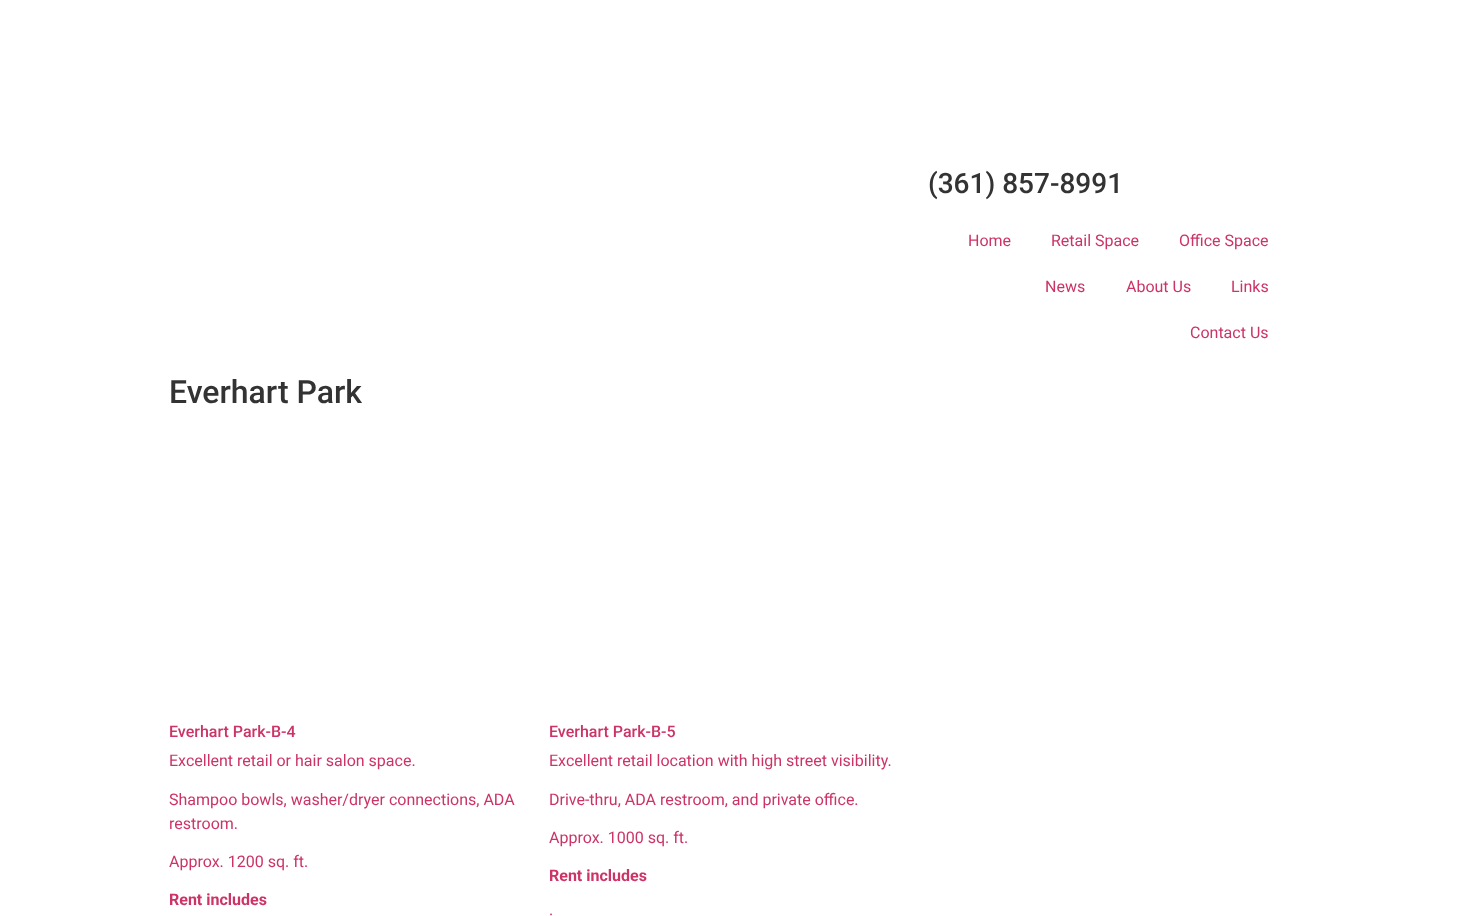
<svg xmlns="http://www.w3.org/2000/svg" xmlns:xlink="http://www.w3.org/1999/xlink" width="1457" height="916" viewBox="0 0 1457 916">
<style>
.cls-1{font:500 28px Roboto;fill:#333333}
.cls-2{font:16px Roboto;fill:#cc3366}
.cls-3{font:500 32px Roboto;fill:#333333}
.cls-4{font:500 16px Roboto;fill:#cc3366}
.cls-5{font:bold 16px Roboto;fill:#cc3366}
</style>
<rect width="100%" height="100%" fill="#ffffff"/>
<text class="cls-1" x="928" y="193">(361) 857-8991</text>
<text class="cls-2" x="968" y="246">Home</text>
<text class="cls-2" x="1051" y="246">Retail Space</text>
<text class="cls-2" x="1179" y="246">Office Space</text>
<text class="cls-2" x="1045" y="292">News</text>
<text class="cls-2" x="1126" y="292">About Us</text>
<text class="cls-2" x="1231" y="292">Links</text>
<text class="cls-2" x="1190" y="338">Contact Us</text>
<text class="cls-3" x="169" y="403">Everhart Park</text>
<text class="cls-4" x="169" y="737">Everhart Park-B-4</text>
<text class="cls-2" x="169" y="766">Excellent retail or hair salon space.</text>
<text class="cls-2"><tspan x="169" y="805">Shampoo bowls, washer/dryer connections, ADA</tspan><tspan x="169" y="829">restroom.</tspan></text>
<text class="cls-2" x="169" y="867">Approx. 1200 sq. ft.</text>
<text class="cls-5" x="169" y="905">Rent includes</text>
<text class="cls-4" x="549" y="737">Everhart Park-B-5</text>
<text class="cls-2" x="549" y="766">Excellent retail location with high street visibility.</text>
<text class="cls-2" x="549" y="805">Drive-thru, ADA restroom, and private office.</text>
<text class="cls-2" x="549" y="843">Approx. 1000 sq. ft.</text>
<text class="cls-5" x="549" y="881">Rent includes</text>
<text class="cls-2" x="549" y="920">·</text>
</svg>
